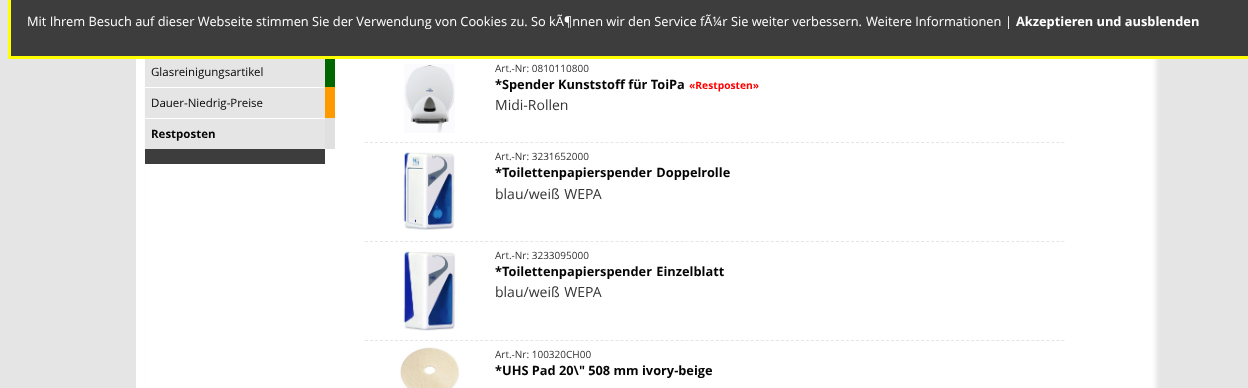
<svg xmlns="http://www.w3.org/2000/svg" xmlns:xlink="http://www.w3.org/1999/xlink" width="1248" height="388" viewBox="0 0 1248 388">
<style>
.cls-1{font:12.8px Open Sans;fill:#ffffff}
.cls-2{font:bold 12.8px Open Sans;fill:#ffffff}
.cls-3{font:11.5px Open Sans;fill:#040404}
.cls-4{font:bold 11.5px Open Sans;fill:#040404}
.cls-5{font:10px Open Sans;fill:#333333}
.cls-6{font:bold 12.8px Open Sans;fill:#040404}
.cls-7{font:bold 10.25px Open Sans;fill:#ff0000}
.cls-8{font:14px Open Sans;fill:#333333}
</style>
<rect width="100%" height="100%" fill="#e5e5e5"/>
<rect fill="#ffffff" filter="blur(2.5px)" x="141" y="-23" width="1015" height="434" rx="15"/>
<rect fill="#3d3d3d" stroke="#ffff00" stroke-width="3" x="9.5" y="-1.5" width="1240" height="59"/>
<rect fill="#ffffff" x="136" y="59" width="8" height="329"/>
<rect fill="#e5e5e5" x="145" y="59" width="180" height="28"/>
<rect fill="#006600" x="325" y="59" width="10" height="28"/>
<rect fill="#e5e5e5" x="145" y="88" width="180" height="30"/>
<rect fill="#ff9900" x="325" y="87" width="10" height="31"/>
<rect fill="#e5e5e5" x="145" y="119" width="180" height="30"/>
<rect fill="#e0e0e0" x="325" y="118" width="10" height="31"/>
<rect fill="#3d3d3d" x="145" y="149" width="180" height="15"/>
<image xlink:href="image0.png" x="404" y="64" width="51" height="69"/>
<path fill="none" stroke="#e5e5e5" stroke-dasharray="3 2.01" d="M365 142.5H1065"/>
<image xlink:href="image1.png" x="403" y="152" width="52" height="78"/>
<path fill="none" stroke="#e5e5e5" stroke-dasharray="3 2.01" d="M365 241.5H1065"/>
<image xlink:href="image2.png" x="403" y="251" width="56" height="80"/>
<path fill="none" stroke="#e5e5e5" stroke-dasharray="3 2.01" d="M365 340.5H1065"/>
<image xlink:href="image3.png" x="400" y="347" width="60" height="41"/>
<text class="cls-1" x="27" y="26">Mit Ihrem Besuch auf dieser Webseite stimmen Sie der Verwendung von Cookies zu. So kÃ¶nnen wir den Service fÃ¼r Sie weiter verbessern.</text>
<text class="cls-1" x="866" y="26">Weitere Informationen</text>
<text class="cls-1" x="1005" y="26">|</text>
<text class="cls-2" x="1016" y="26">Akzeptieren und ausblenden</text>
<text class="cls-3" x="151" y="76">Glasreinigungsartikel</text>
<text class="cls-3" x="151" y="107">Dauer-Niedrig-Preise</text>
<text class="cls-4" x="151" y="138">Restposten</text>
<text class="cls-5" x="495" y="72">Art.-Nr: 0810110800</text>
<text class="cls-6" x="495" y="89">*Spender Kunststoff für ToiPa</text>
<text class="cls-7" x="689" y="89">«Restposten»</text>
<text class="cls-8" x="495" y="110">Midi-Rollen</text>
<text class="cls-5" x="495" y="160">Art.-Nr: 3231652000</text>
<text class="cls-6" x="495" y="177" word-spacing="1">*Toilettenpapierspender Doppelrolle</text>
<text class="cls-8" x="495" y="199" word-spacing="1">blau/weiß WEPA</text>
<text class="cls-5" x="495" y="259">Art.-Nr: 3233095000</text>
<text class="cls-6" x="495" y="276" word-spacing="1">*Toilettenpapierspender Einzelblatt</text>
<text class="cls-8" x="495" y="297" word-spacing="1">blau/weiß WEPA</text>
<text class="cls-5" x="495" y="358">Art.-Nr: 100320CH00</text>
<text class="cls-6" x="495" y="375">*UHS Pad 20\" 508 mm ivory-beige</text>
</svg>
